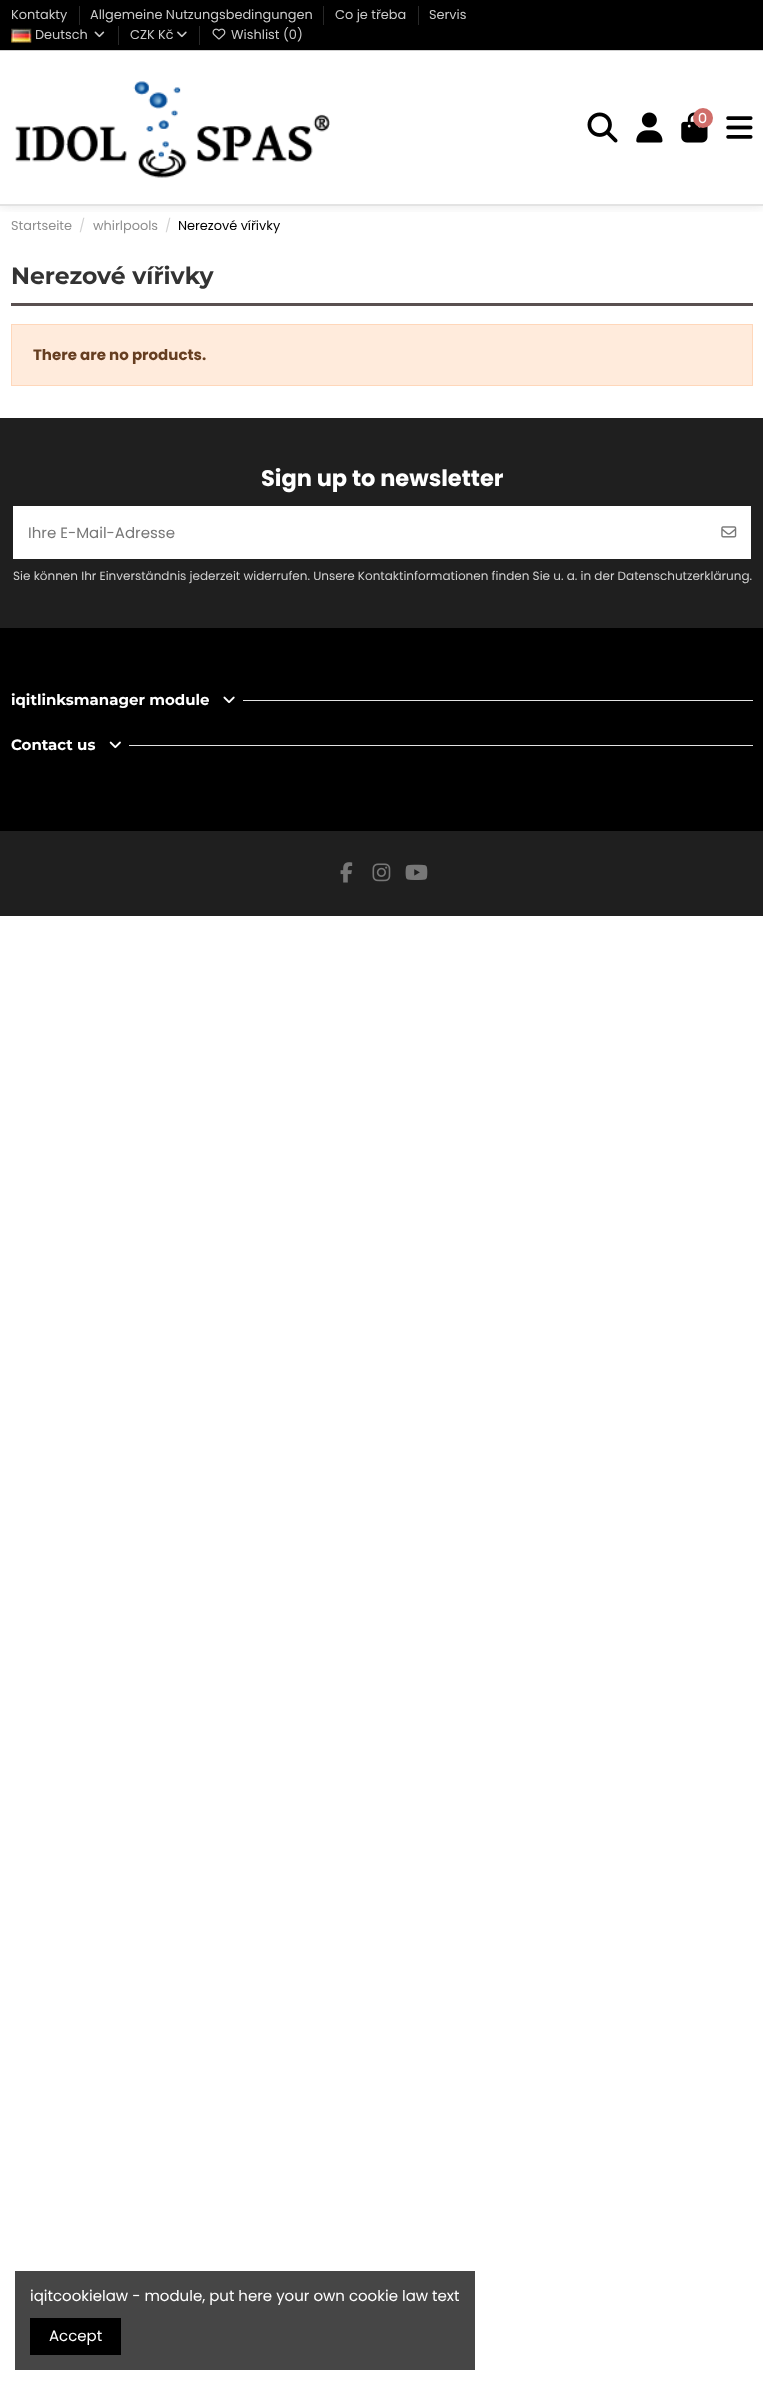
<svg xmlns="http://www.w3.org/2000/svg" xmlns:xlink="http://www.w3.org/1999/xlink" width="763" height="2385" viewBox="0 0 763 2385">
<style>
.cls-1{font:12.9px Poppins;fill:#c9c9c9}
.cls-2{font:12.9px Poppins;fill:#8f8f8f}
.cls-3{font:12.9px Poppins;fill:#d2d2d2}
.cls-4{font:12.9px Poppins;fill:#000000}
.cls-5{font:bold 23.5px Montserrat;fill:#333333}
.cls-6{font:bold 15px Poppins;fill:#663e21}
.cls-7{font:bold 22.5px Poppins;fill:#ffffff}
.cls-8{font:15px Poppins;fill:#777777}
.cls-9{font:12px Poppins;fill:#d2d2d2}
.cls-10{font:bold 15px Montserrat;fill:#ffffff}
.cls-11{font:15px Poppins;fill:#ffffff}
</style>
<defs>
<clipPath id="clip1"><rect x="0" y="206" width="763" height="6"/></clipPath>
</defs>
<rect width="100%" height="100%" fill="#ffffff"/>
<g clip-path="url(#clip1)">
<rect fill="#3d3939" fill-opacity="0.17" filter="blur(7px)" x="0" y="-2" width="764" height="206"/>
</g>
<rect fill="#e3e3e3" x="0" y="204" width="763" height="2"/>
<rect fill="#000000" x="0" y="0" width="763" height="50"/>
<rect fill="#cfcfcf" x="0" y="50" width="763" height="1"/>
<rect fill="#282828" x="79" y="6" width="1" height="19"/>
<rect fill="#282828" x="323" y="6" width="1" height="19"/>
<rect fill="#282828" x="418" y="6" width="1" height="19"/>
<image xlink:href="image0.png" x="11" y="28" width="21" height="15"/>
<image xlink:href="image1.png" x="94" y="31" width="11" height="7"/>
<rect fill="#282828" x="118" y="26" width="1" height="19"/>
<image xlink:href="image2.png" x="177" y="31" width="10" height="7"/>
<rect fill="#282828" x="199" y="26" width="1" height="19"/>
<image xlink:href="image3.png" x="212" y="28" width="14" height="12"/>
<image xlink:href="image4.png" x="15" y="81" width="315" height="97"/>
<image xlink:href="image5.png" x="587" y="112" width="31" height="31"/>
<image xlink:href="image6.png" x="636" y="112" width="27" height="31"/>
<image xlink:href="image8.png" x="681" y="112" width="27" height="31"/>
<circle fill="#d06e6a" cx="703" cy="118" r="10"/>
<image xlink:href="image7.png" x="698" y="112" width="9" height="12"/>
<image xlink:href="image9.png" x="726" y="116" width="27" height="23"/>
<rect fill="#595050" x="11" y="303" width="742" height="3"/>
<rect fill="#ffebdc" stroke="#ffd7ba" x="11.5" y="324.5" width="741" height="61"/>
<rect fill="#000000" x="0" y="628" width="763" height="203"/>
<rect fill="#1f1f1f" x="0" y="418" width="763" height="210"/>
<rect fill="#ffffff" x="13" y="506" width="738" height="53"/>
<image xlink:href="image10.png" x="721" y="526" width="16" height="12"/>
<image xlink:href="image11.png" x="223" y="696" width="12" height="8"/>
<rect fill="#e3e3e3" x="243" y="700" width="510" height="1"/>
<image xlink:href="image12.png" x="109" y="741" width="12" height="8"/>
<rect fill="#e3e3e3" x="129" y="745" width="624" height="1"/>
<rect fill="#1f1f1f" x="0" y="831" width="763" height="85"/>
<image xlink:href="image13.png" x="340" y="862" width="13" height="21"/>
<image xlink:href="image14.png" x="372" y="863" width="19" height="19"/>
<image xlink:href="image15.png" x="405" y="864" width="23" height="16"/>
<rect fill="#464646" x="15" y="2271" width="460" height="99"/>
<rect fill="#000000" x="30" y="2318" width="91" height="37"/>
<text class="cls-1" x="11" y="19">Kontakty</text>
<text class="cls-1" x="90" y="19">Allgemeine Nutzungsbedingungen</text>
<text class="cls-1" x="335" y="19">Co je třeba</text>
<text class="cls-1" x="429" y="19">Servis</text>
<text class="cls-1" x="35" y="39">Deutsch</text>
<text class="cls-1" x="130" y="39">CZK Kč</text>
<text class="cls-1" x="231" y="39">Wishlist (0)</text>
<text class="cls-2" x="11" y="230">Startseite</text>
<text class="cls-3" x="79" y="230">/</text>
<text class="cls-2" x="93" y="230">whirlpools</text>
<text class="cls-3" x="165" y="230">/</text>
<text class="cls-4" x="178" y="230">Nerezové vířivky</text>
<text class="cls-5" x="11" y="284">Nerezové vířivky</text>
<text class="cls-6" x="33" y="360">There are no products.</text>
<text class="cls-7" x="261" y="486">Sign up to newsletter</text>
<text class="cls-8" x="28" y="538">Ihre E-Mail-Adresse</text>
<text class="cls-9" x="13" y="580">Sie können Ihr Einverständnis jederzeit widerrufen. Unsere Kontaktinformationen finden Sie u. a. in der Datenschutzerklärung.</text>
<text class="cls-10" x="11" y="705">iqitlinksmanager module</text>
<text class="cls-10" x="11" y="750">Contact us</text>
<text class="cls-11" x="30" y="2301">iqitcookielaw - module, put here your own cookie law text</text>
<text class="cls-11" x="49" y="2341">Accept</text>
</svg>
